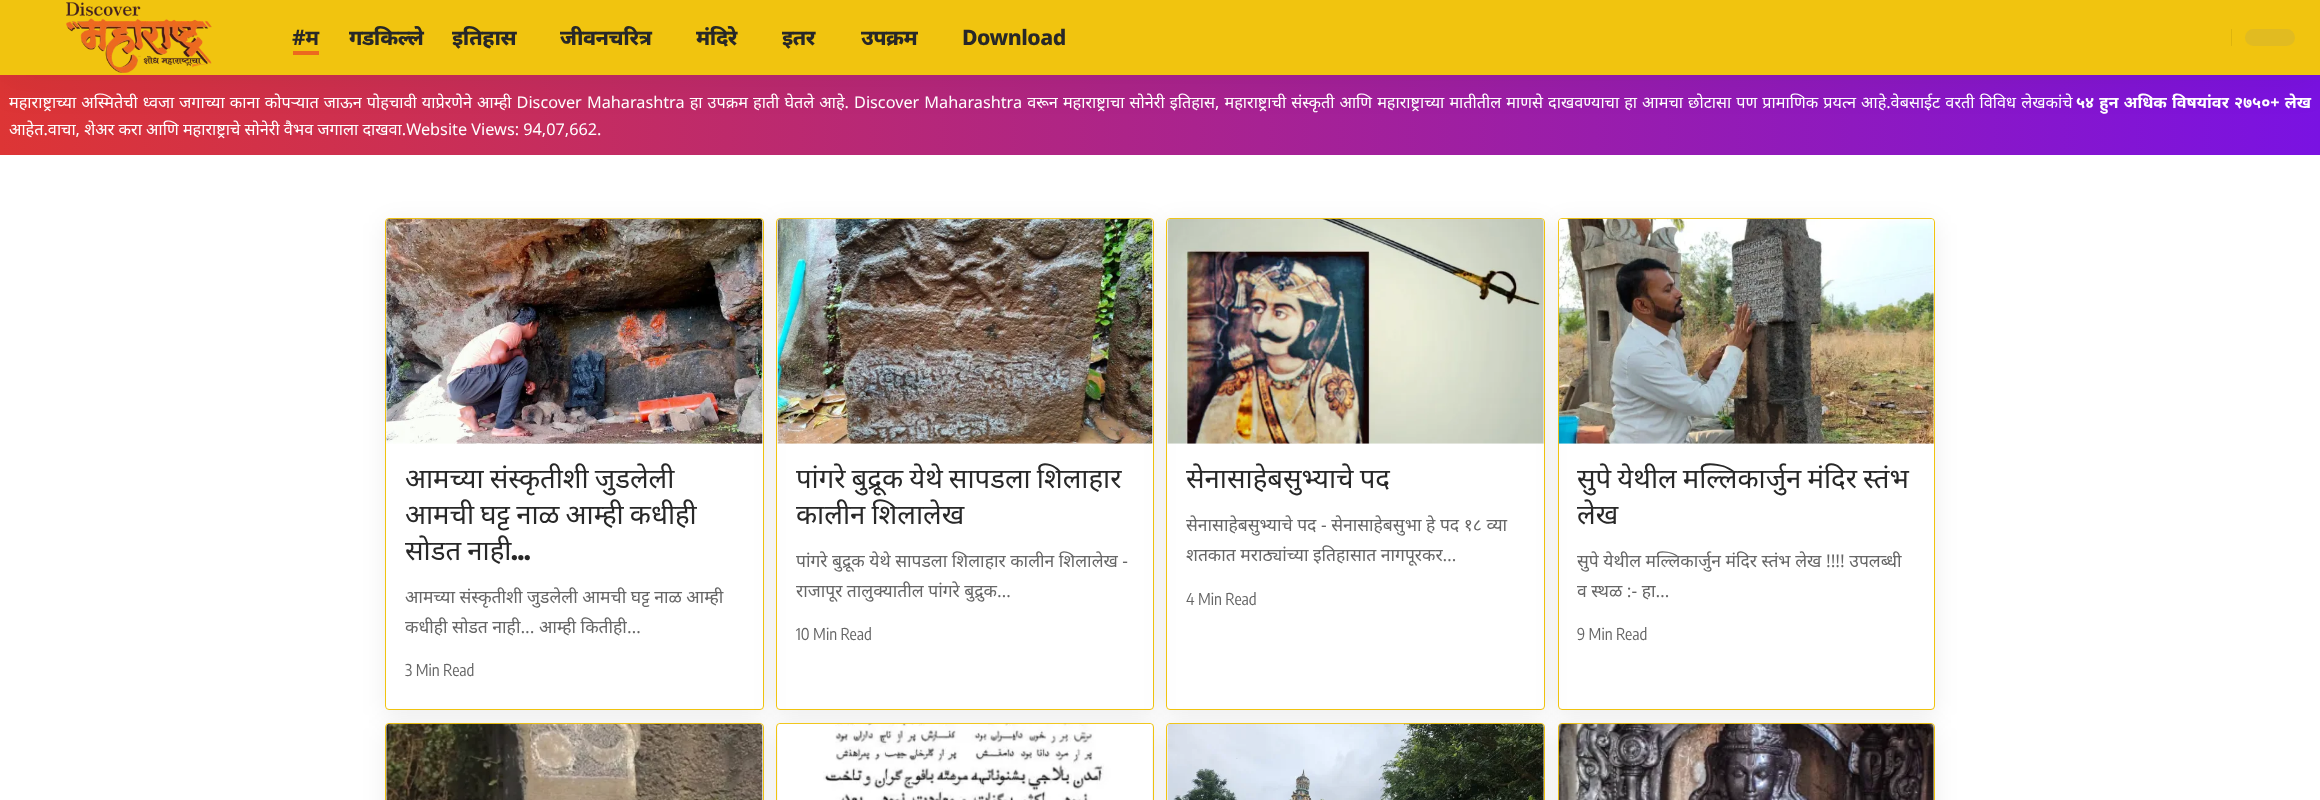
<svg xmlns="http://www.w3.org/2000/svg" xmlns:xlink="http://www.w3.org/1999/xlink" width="2320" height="800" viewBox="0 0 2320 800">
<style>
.cls-1{font:bold 21.25px Noto Sans;letter-spacing:-0.5px;fill:#282828}
.cls-2{font:800 21.25px Noto Sans;letter-spacing:-0.5px;fill:#282828}
.cls-3{font:16.25px Noto Sans;fill:#ffffff}
.cls-4{font:bold 16.25px Noto Sans;fill:#ffffff}
.cls-5{font:27.5px Noto Sans;fill:#282828}
.cls-6{font:bold 27.5px Encode Sans Condensed;fill:#282828}
.cls-7{font:17.5px Noto Sans;fill:#666666}
.cls-8{font:16.25px Encode Sans Condensed;fill:#666666}
</style>
<defs>
<linearGradient id="g1" gradientUnits="userSpaceOnUse" x1="0" y1="115" x2="2320" y2="115"><stop offset="0" stop-color="#dd3535"/><stop offset="1" stop-color="#7a12e2"/></linearGradient>
<clipPath id="clip1"><path d="M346 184H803V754H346ZM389 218H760C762 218 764 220 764 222V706C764 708 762 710 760 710H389C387 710 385 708 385 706V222C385 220 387 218 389 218Z" clip-rule="evenodd"/></clipPath>
<clipPath id="clip2"><path d="M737 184H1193V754H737ZM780 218H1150C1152 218 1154 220 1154 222V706C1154 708 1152 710 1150 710H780C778 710 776 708 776 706V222C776 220 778 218 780 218Z" clip-rule="evenodd"/></clipPath>
<clipPath id="clip3"><path d="M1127 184H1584V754H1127ZM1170 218H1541C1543 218 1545 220 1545 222V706C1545 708 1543 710 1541 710H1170C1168 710 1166 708 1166 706V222C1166 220 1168 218 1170 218Z" clip-rule="evenodd"/></clipPath>
<clipPath id="clip4"><path d="M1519 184H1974V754H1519ZM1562 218H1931C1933 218 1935 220 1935 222V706C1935 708 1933 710 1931 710H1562C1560 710 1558 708 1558 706V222C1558 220 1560 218 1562 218Z" clip-rule="evenodd"/></clipPath>
</defs>
<rect width="100%" height="100%" fill="#ffffff"/>
<rect fill="url(#g1)" x="0" y="75" width="2320" height="80"/>
<rect fill="#000000" fill-opacity="0.07" filter="blur(19px)" x="0" y="5" width="2320" height="75"/>
<rect fill="#f1c40f" x="0" y="0" width="2320" height="75"/>
<image xlink:href="image0.png" x="66" y="2" width="146" height="71"/>
<rect fill="#ec691f" x="293" y="51" width="26" height="4"/>
<rect fill="#ddb40e" x="2231" y="29" width="1" height="17"/>
<rect fill="#e1bb21" x="2245" y="29" width="50" height="17" rx="8.5"/>
<g clip-path="url(#clip1)">
<rect fill="#000000" fill-opacity="0.07" filter="blur(12.5px)" x="385" y="223" width="379" height="492" rx="4"/>
</g>
<rect fill="none" stroke="#f1c40f" x="385.5" y="218.5" width="378" height="491" rx="3.5"/>
<g clip-path="url(#clip2)">
<rect fill="#000000" fill-opacity="0.07" filter="blur(12.5px)" x="776" y="223" width="378" height="492" rx="4"/>
</g>
<image xlink:href="image1.png" x="386" y="218" width="377" height="226"/>
<rect fill="none" stroke="#f1c40f" x="776.5" y="218.5" width="377" height="491" rx="3.5"/>
<g clip-path="url(#clip3)">
<rect fill="#000000" fill-opacity="0.07" filter="blur(12.5px)" x="1166" y="223" width="379" height="492" rx="4"/>
</g>
<image xlink:href="image2.png" x="777" y="218" width="376" height="226"/>
<rect fill="none" stroke="#f1c40f" x="1166.5" y="218.5" width="378" height="491" rx="3.5"/>
<g clip-path="url(#clip4)">
<rect fill="#000000" fill-opacity="0.07" filter="blur(12.5px)" x="1558" y="223" width="377" height="492" rx="4"/>
</g>
<image xlink:href="image3.png" x="1167" y="218" width="377" height="226"/>
<rect fill="none" stroke="#f1c40f" x="1558.5" y="218.5" width="376" height="491" rx="3.5"/>
<image xlink:href="image4.png" x="1558" y="218" width="376" height="226"/>
<rect fill="#000000" fill-opacity="0.07" filter="blur(12.5px)" x="385" y="728" width="379" height="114" rx="4"/>
<rect fill="none" stroke="#f1c40f" x="385.5" y="723.5" width="378" height="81" rx="3.5"/>
<rect fill="#000000" fill-opacity="0.07" filter="blur(12.5px)" x="776" y="728" width="378" height="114" rx="4"/>
<image xlink:href="image5.png" x="386" y="723" width="377" height="77"/>
<rect fill="none" stroke="#f1c40f" x="776.5" y="723.5" width="377" height="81" rx="3.5"/>
<rect fill="#000000" fill-opacity="0.07" filter="blur(12.5px)" x="1166" y="728" width="379" height="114" rx="4"/>
<image xlink:href="image6.png" x="777" y="723" width="376" height="77"/>
<rect fill="none" stroke="#f1c40f" x="1166.5" y="723.5" width="378" height="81" rx="3.5"/>
<rect fill="#000000" fill-opacity="0.07" filter="blur(12.5px)" x="1558" y="728" width="377" height="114" rx="4"/>
<image xlink:href="image7.png" x="1167" y="723" width="377" height="77"/>
<rect fill="none" stroke="#f1c40f" x="1558.5" y="723.5" width="376" height="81" rx="3.5"/>
<image xlink:href="image8.png" x="1558" y="723" width="376" height="77"/>
<text class="cls-1" x="292" y="45">#म</text>
<text class="cls-2" x="349" y="45">गडकिल्ले</text>
<text class="cls-2" x="452" y="45">इतिहास</text>
<text class="cls-2" x="560" y="45">जीवनचरित्र</text>
<text class="cls-2" x="696" y="45">मंदिरे</text>
<text class="cls-2" x="782" y="45">इतर</text>
<text class="cls-2" x="861" y="45">उपक्रम</text>
<text class="cls-2" x="962" y="45">Download</text>
<text class="cls-3" x="9" y="108" word-spacing="0.85">महाराष्ट्राच्या अस्मितेची ध्वजा जगाच्या काना कोपर्‍यात जाऊन पोहचावी याप्रेरणेने आम्ही Discover Maharashtra हा उपक्रम हाती घेतले आहे. Discover Maharashtra वरून महाराष्ट्राचा सोनेरी इतिहास, महाराष्ट्राची संस्कृती आणि महाराष्ट्राच्या मातीतील माणसे दाखवण्याचा हा आमचा छोटासा पण प्रामाणिक प्रयत्न आहे.वेबसाईट वरती विविध लेखकांचे</text>
<text class="cls-4" x="2076" y="108" word-spacing="0.85">५४ हुन अधिक विषयांवर २७५०+ लेख</text>
<text class="cls-3" x="9" y="135">आहेत.वाचा, शेअर करा आणि महाराष्ट्राचे सोनेरी वैभव जगाला दाखवा.Website Views: 94,07,662.</text>
<text class="cls-5"><tspan x="405" y="488" word-spacing="-1">आमच्या संस्कृतीशी जुडलेली</tspan><tspan x="405" y="524" word-spacing="-1">आमची घट्ट नाळ आम्ही कधीही</tspan><tspan x="405" y="560" word-spacing="-1">सोडत नाही</tspan></text>
<text class="cls-6" x="511" y="560">…</text>
<text class="cls-7"><tspan x="405" y="603">आमच्या संस्कृतीशी जुडलेली आमची घट्ट नाळ आम्ही</tspan><tspan x="405" y="633">कधीही सोडत नाही... आम्ही कितीही…</tspan></text>
<text class="cls-8" x="405" y="676">3 Min Read</text>
<text class="cls-5"><tspan x="796" y="488" word-spacing="-1">पांगरे बुद्रूक येथे सापडला शिलाहार</tspan><tspan x="796" y="524" word-spacing="-1">कालीन शिलालेख</tspan></text>
<text class="cls-7"><tspan x="796" y="567">पांगरे बुद्रूक येथे सापडला शिलाहार कालीन शिलालेख -</tspan><tspan x="796" y="597">राजापूर तालुक्यातील पांगरे बुद्रुक…</tspan></text>
<text class="cls-8" x="796" y="640">10 Min Read</text>
<text class="cls-5" x="1186" y="488" word-spacing="-1">सेनासाहेबसुभ्याचे पद</text>
<text class="cls-7"><tspan x="1186" y="531">सेनासाहेबसुभ्याचे पद - सेनासाहेबसुभा हे पद १८ व्या</tspan><tspan x="1186" y="561">शतकात मराठ्यांच्या इतिहासात नागपूरकर…</tspan></text>
<text class="cls-8" x="1186" y="605">4 Min Read</text>
<text class="cls-5"><tspan x="1577" y="488" word-spacing="-1">सुपे येथील मल्लिकार्जुन मंदिर स्तंभ</tspan><tspan x="1577" y="524">लेख</tspan></text>
<text class="cls-7"><tspan x="1577" y="567">सुपे येथील मल्लिकार्जुन मंदिर स्तंभ लेख !!!! उपलब्धी</tspan><tspan x="1577" y="597">व स्थळ :- हा…</tspan></text>
<text class="cls-8" x="1577" y="640">9 Min Read</text>
</svg>
